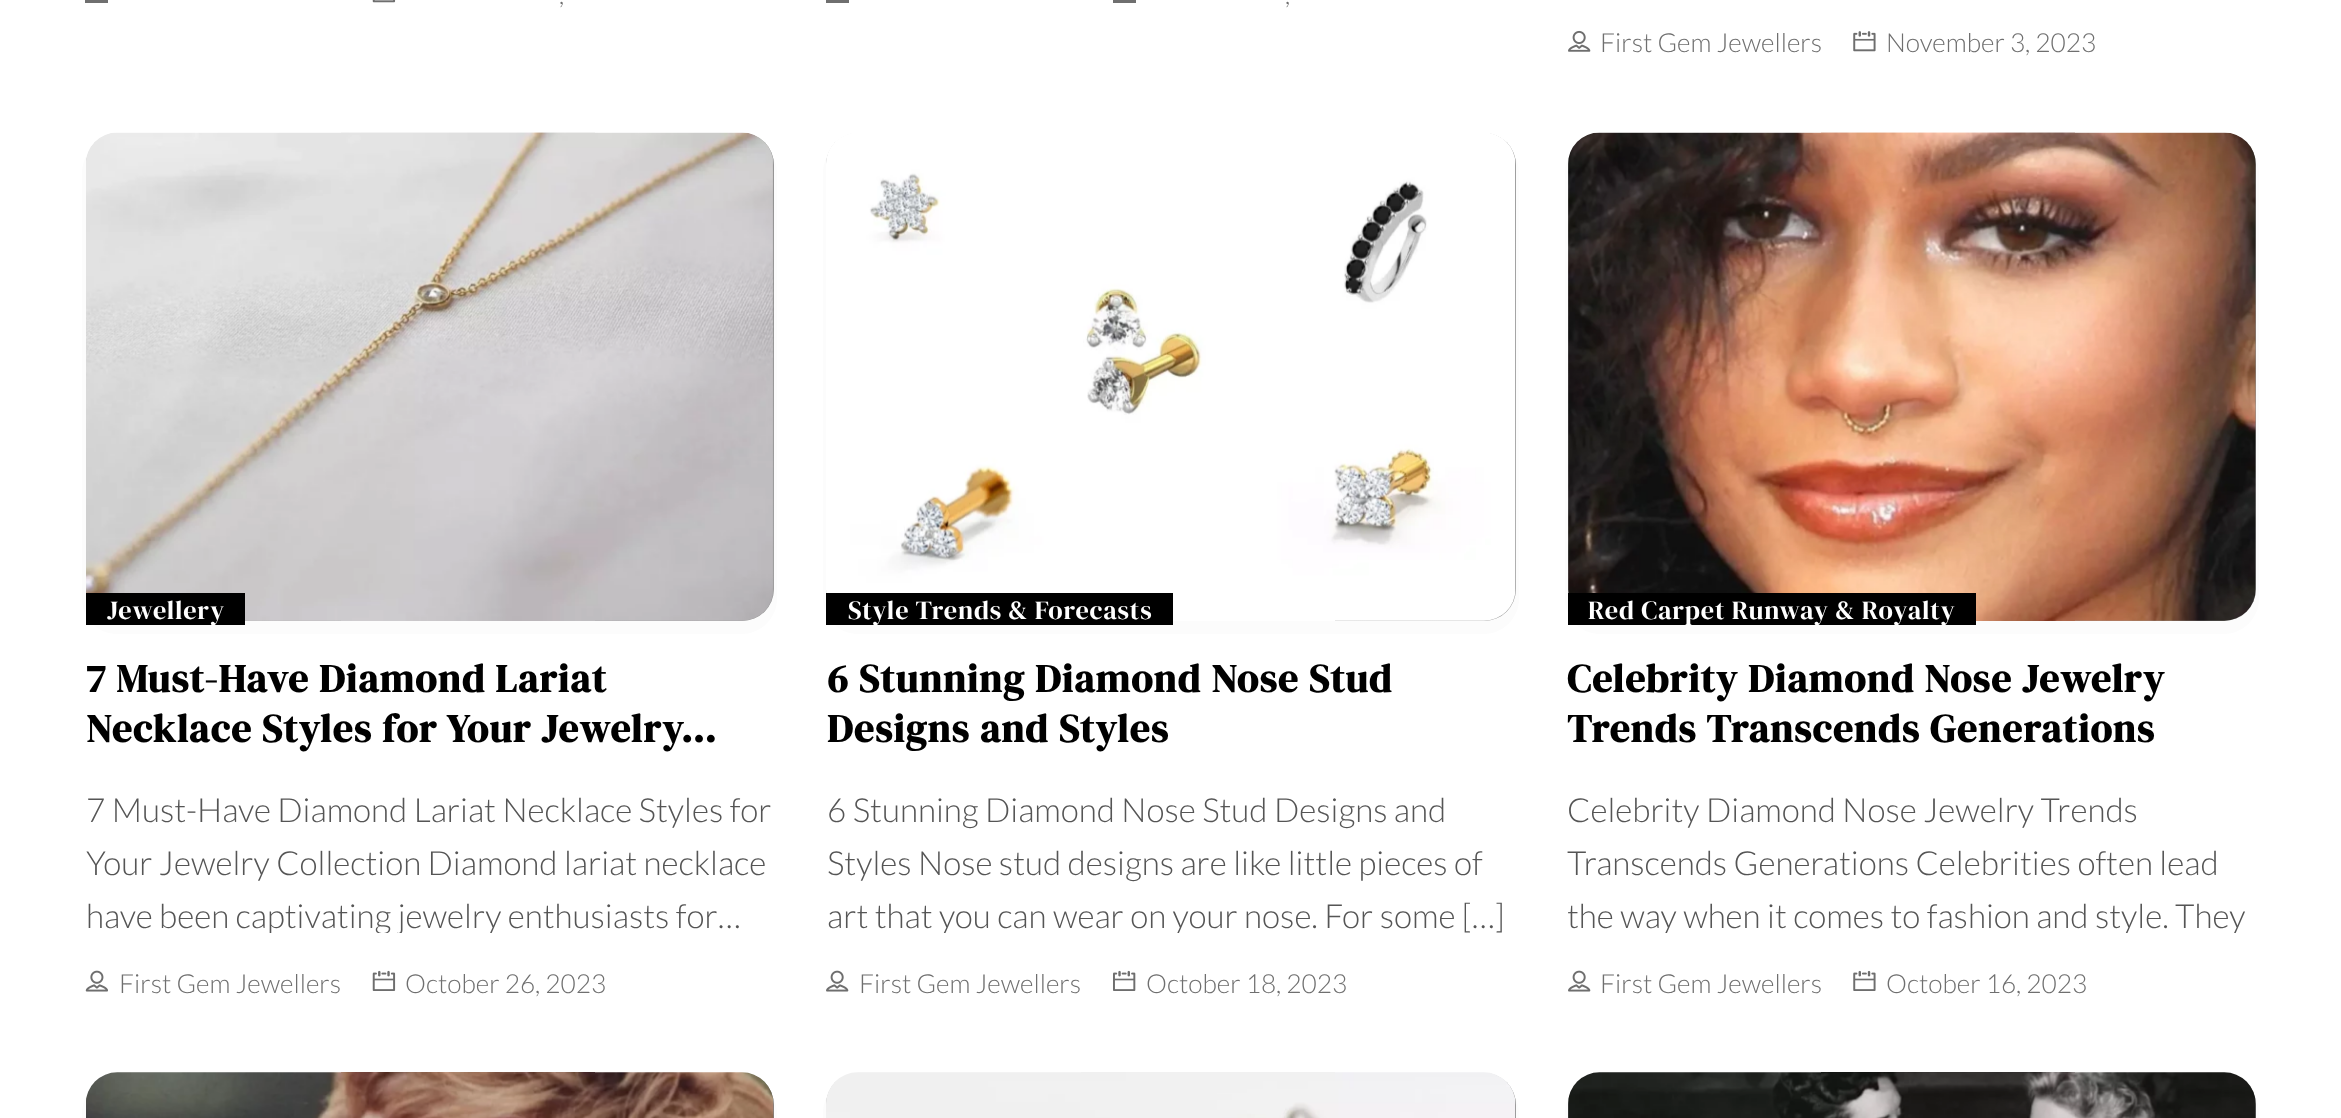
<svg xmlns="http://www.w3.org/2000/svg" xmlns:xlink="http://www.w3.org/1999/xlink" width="2341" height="1118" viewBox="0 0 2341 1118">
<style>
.cls-1{font:300 26.25px Lato;fill:#6f6f6f}
.cls-2{font:26.25px DM Serif Display;letter-spacing:0.8px;fill:#ffffff}
.cls-3{font:bold 39.4px DM Serif Display;letter-spacing:1.2px;fill:#000000}
.cls-4{font:300 33.25px Lato;fill:#555555}
</style>
<defs>
<linearGradient id="g1" gradientUnits="userSpaceOnUse" x1="136" y1="671" x2="724" y2="83"><stop offset="0" stop-color="#c0c0c0"/><stop offset="1" stop-color="#7d7d7d"/></linearGradient>
<linearGradient id="g2" gradientUnits="userSpaceOnUse" x1="876" y1="672" x2="1465" y2="83"><stop offset="0" stop-color="#c0c0c0"/><stop offset="1" stop-color="#7d7d7d"/></linearGradient>
<linearGradient id="g3" gradientUnits="userSpaceOnUse" x1="1618" y1="671" x2="2206" y2="83"><stop offset="0" stop-color="#c0c0c0"/><stop offset="1" stop-color="#7d7d7d"/></linearGradient>
<linearGradient id="g4" gradientUnits="userSpaceOnUse" x1="136" y1="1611" x2="724" y2="1023"><stop offset="0" stop-color="#c0c0c0"/><stop offset="1" stop-color="#7d7d7d"/></linearGradient>
<linearGradient id="g5" gradientUnits="userSpaceOnUse" x1="876" y1="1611" x2="1465" y2="1022"><stop offset="0" stop-color="#c0c0c0"/><stop offset="1" stop-color="#7d7d7d"/></linearGradient>
<linearGradient id="g6" gradientUnits="userSpaceOnUse" x1="1618" y1="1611" x2="2206" y2="1023"><stop offset="0" stop-color="#c0c0c0"/><stop offset="1" stop-color="#7d7d7d"/></linearGradient>
<clipPath id="clip1"><rect x="86" y="784" width="688" height="149"/></clipPath>
<clipPath id="clip2"><rect x="826" y="784" width="690" height="149"/></clipPath>
<clipPath id="clip3"><rect x="1568" y="784" width="688" height="149"/></clipPath>
</defs>
<rect width="100%" height="100%" fill="#ffffff"/>
<rect fill="#6f6f6f" x="85" y="0" width="23" height="3"/>
<image xlink:href="image0.png" x="372" y="0" width="24" height="3"/>
<rect fill="#6f6f6f" x="826" y="0" width="23" height="3"/>
<rect fill="#6f6f6f" x="1113" y="0" width="23" height="3"/>
<image xlink:href="image1.png" x="1568" y="30" width="23" height="22"/>
<image xlink:href="image2.png" x="1853" y="31" width="23" height="21"/>
<path fill="#fcfcfc" d="M87 154C84 160 82 166 82 173V599C82 618 98 634 117 634H742C761 634 777 618 777 599V173C777 166 775 160 772 155C773 158 774 161 774 164V590C774 607 759 621 742 621H117C100 621 86 607 86 590V164C86 161 86 157 87 154Z"/>
<rect fill="url(#g1)" x="86" y="133" width="688" height="488" rx="32"/>
<image xlink:href="image3.png" x="86" y="132" width="688" height="489"/>
<rect fill="#000000" x="86" y="593" width="159" height="32"/>
<image xlink:href="image4.png" x="85" y="970" width="23" height="22"/>
<image xlink:href="image5.png" x="372" y="970" width="24" height="21"/>
<path fill="#fcfcfc" d="M827 157C824 162 823 167 823 173V599C823 618 839 634 858 634H1484C1503 634 1519 618 1519 599V173C1519 166 1517 160 1514 155C1515 158 1516 161 1516 164V590C1516 607 1501 621 1484 621H858C840 621 826 607 826 590V164Z"/>
<rect fill="url(#g2)" x="826" y="133" width="690" height="488" rx="32"/>
<image xlink:href="image6.png" x="826" y="133" width="690" height="488"/>
<rect fill="#000000" x="826" y="593" width="347" height="32"/>
<image xlink:href="image7.png" x="826" y="970" width="23" height="22"/>
<image xlink:href="image8.png" x="1113" y="970" width="23" height="21"/>
<path fill="#fcfcfc" d="M1569 157C1566 162 1565 167 1565 173V599C1565 618 1581 634 1600 634H2224C2243 634 2259 618 2259 599V173C2259 167 2257 161 2255 156C2255 159 2256 162 2256 164V590C2256 607 2242 621 2224 621H1600C1582 621 1568 607 1568 590V164Z"/>
<rect fill="url(#g3)" x="1568" y="133" width="688" height="488" rx="32"/>
<image xlink:href="image9.png" x="1568" y="132" width="688" height="489"/>
<rect fill="#000000" x="1568" y="593" width="408" height="32"/>
<image xlink:href="image7.png" x="1568" y="970" width="23" height="22"/>
<image xlink:href="image10.png" x="1853" y="970" width="23" height="21"/>
<path fill="#fcfcfc" d="M87 1094C84 1100 82 1106 82 1113V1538C82 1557 98 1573 117 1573H742C761 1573 777 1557 777 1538V1113C777 1107 775 1101 772 1095C773 1098 774 1101 774 1104V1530C774 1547 759 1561 742 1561H117C100 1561 86 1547 86 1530V1104C86 1101 86 1098 87 1094Z"/>
<rect fill="url(#g4)" x="86" y="1073" width="688" height="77" rx="32"/>
<image xlink:href="image11.png" x="86" y="1072" width="688" height="46"/>
<path fill="#fcfcfc" d="M827 1097C824 1102 823 1107 823 1113V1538C823 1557 839 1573 858 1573H1484C1503 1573 1519 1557 1519 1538V1113C1519 1107 1517 1101 1514 1095C1515 1098 1516 1101 1516 1104V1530C1516 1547 1501 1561 1484 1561H858C840 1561 826 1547 826 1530V1104Z"/>
<rect fill="url(#g5)" x="826" y="1073" width="690" height="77" rx="32"/>
<image xlink:href="image12.png" x="826" y="1072" width="690" height="46"/>
<path fill="#fcfcfc" d="M1569 1097C1566 1102 1565 1107 1565 1113V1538C1565 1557 1581 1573 1600 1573H2224C2243 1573 2259 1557 2259 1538V1113C2259 1107 2257 1101 2255 1096C2255 1099 2256 1101 2256 1104V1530C2256 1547 2242 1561 2224 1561H1600C1582 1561 1568 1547 1568 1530V1104Z"/>
<rect fill="url(#g6)" x="1568" y="1073" width="688" height="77" rx="32"/>
<image xlink:href="image13.png" x="1568" y="1072" width="688" height="46"/>
<text class="cls-1" x="559" y="4">,</text>
<text class="cls-1" x="1285" y="4">,</text>
<text class="cls-1" x="1600" y="52">First Gem Jewellers</text>
<text class="cls-1" x="1886" y="52">November 3, 2023</text>
<text class="cls-2" x="107" y="619">Jewellery</text>
<text class="cls-3"><tspan x="86" y="692">7 Must-Have Diamond Lariat</tspan><tspan x="86" y="742">Necklace Styles for Your Jewelry…</tspan></text>
<text class="cls-4"><tspan x="86" y="822">7 Must-Have Diamond Lariat Necklace Styles for</tspan><tspan x="86" y="875">Your Jewelry Collection Diamond lariat necklace</tspan></text>
<g clip-path="url(#clip1)">
<text class="cls-4" x="86" y="928">have been captivating jewelry enthusiasts for…</text>
</g>
<text class="cls-1" x="119" y="993">First Gem Jewellers</text>
<text class="cls-1" x="405" y="993">October 26, 2023</text>
<text class="cls-2" x="848" y="619">Style Trends &amp; Forecasts</text>
<text class="cls-3"><tspan x="827" y="692">6 Stunning Diamond Nose Stud</tspan><tspan x="827" y="742">Designs and Styles</tspan></text>
<text class="cls-4"><tspan x="827" y="822">6 Stunning Diamond Nose Stud Designs and</tspan><tspan x="827" y="875">Styles Nose stud designs are like little pieces of</tspan></text>
<g clip-path="url(#clip2)">
<text class="cls-4" x="827" y="928">art that you can wear on your nose. For some […]</text>
</g>
<text class="cls-1" x="859" y="993">First Gem Jewellers</text>
<text class="cls-1" x="1146" y="993">October 18, 2023</text>
<text class="cls-2" x="1588" y="619">Red Carpet Runway &amp; Royalty</text>
<text class="cls-3"><tspan x="1567" y="692">Celebrity Diamond Nose Jewelry</tspan><tspan x="1567" y="742">Trends Transcends Generations</tspan></text>
<text class="cls-4"><tspan x="1567" y="822">Celebrity Diamond Nose Jewelry Trends</tspan><tspan x="1567" y="875">Transcends Generations Celebrities often lead</tspan></text>
<g clip-path="url(#clip3)">
<text class="cls-4" x="1567" y="928">the way when it comes to fashion and style. They</text>
</g>
<text class="cls-1" x="1600" y="993">First Gem Jewellers</text>
<text class="cls-1" x="1886" y="993">October 16, 2023</text>
</svg>
